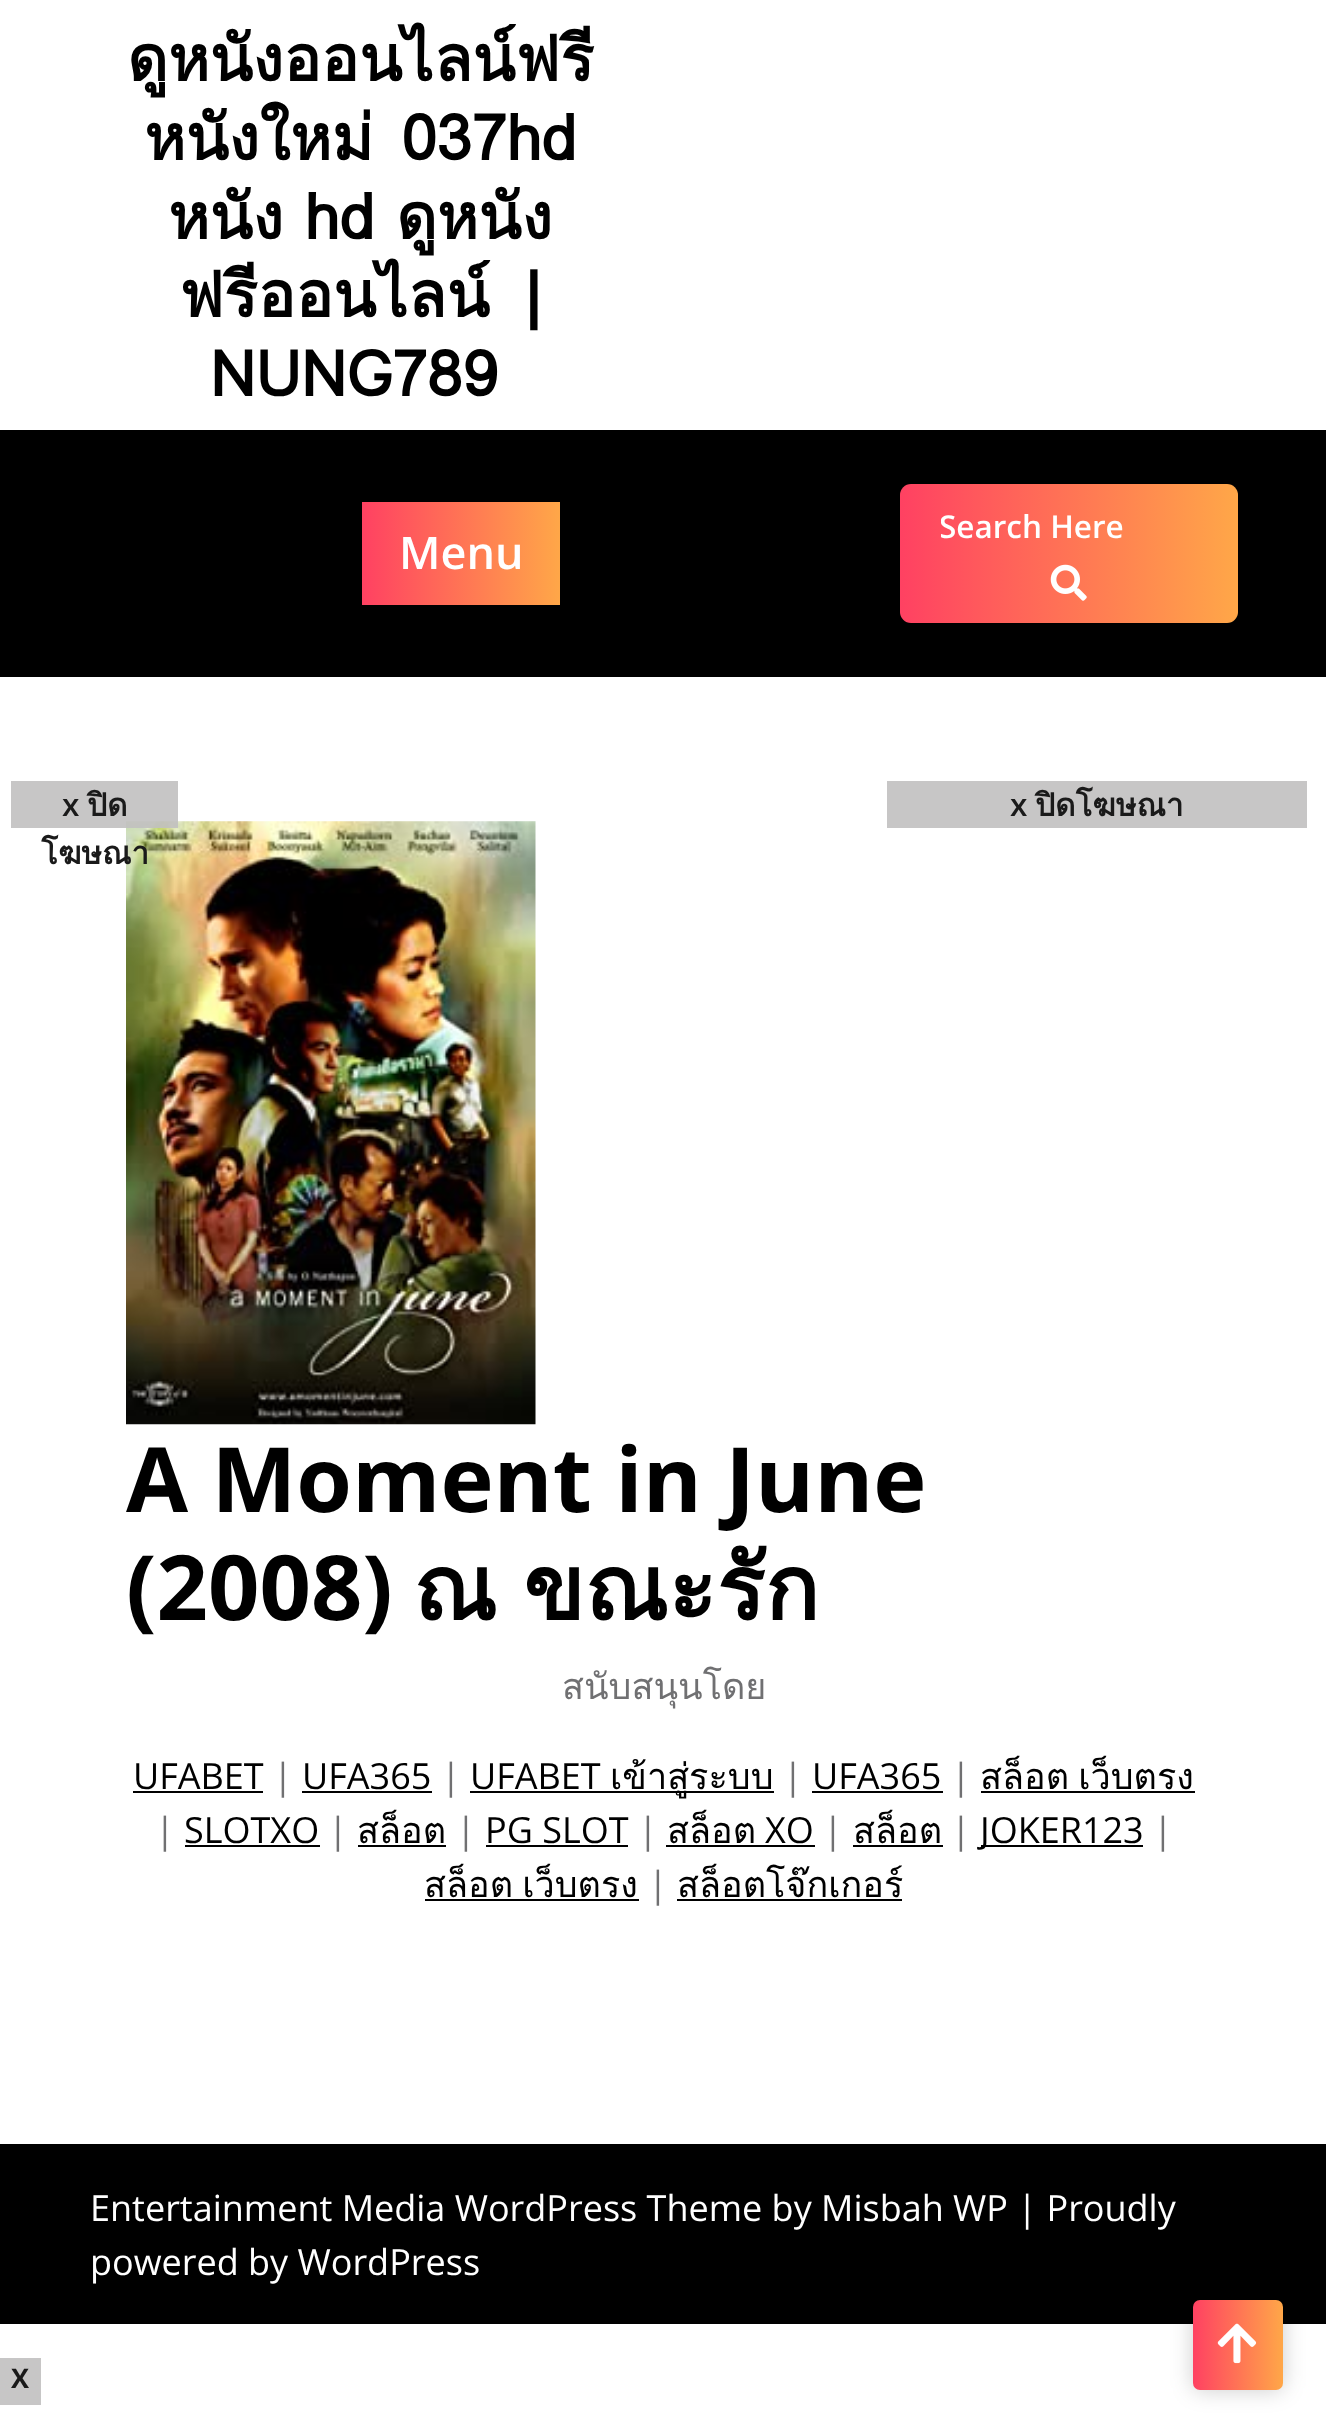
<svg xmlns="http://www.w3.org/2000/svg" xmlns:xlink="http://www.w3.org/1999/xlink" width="1326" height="2416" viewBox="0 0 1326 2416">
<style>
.cls-1{font:bold 63px Loma;fill:#000000}
.cls-2{font:600 31.5px Open Sans;fill:#ffffff}
.cls-3{font:600 45px Open Sans;fill:#ffffff}
.cls-4{font:600 31.5px Open Sans;fill:#1a1a1a}
.cls-5{font:bold 31.5px Loma;fill:#1a1a1a}
.cls-6{font:bold 27px Open Sans;fill:#1a1a1a}
.cls-7{font:bold 90px Open Sans;fill:#000000}
.cls-8{font:bold 90px Loma;fill:#000000}
.cls-9{font:36px Loma;fill:#707072}
.cls-10{font:36px Open Sans;fill:#000000}
.cls-11{font:36px Open Sans;fill:#707072}
.cls-12{font:36px Loma;fill:#000000}
.cls-13{font:36px Open Sans;fill:#ffffff}
</style>
<defs>
<linearGradient id="g1" gradientUnits="userSpaceOnUse" x1="900" y1="554" x2="1238" y2="554"><stop offset="0" stop-color="#ff4162"/><stop offset="1" stop-color="#ffa748"/></linearGradient>
<linearGradient id="g2" gradientUnits="userSpaceOnUse" x1="362" y1="554" x2="560" y2="554"><stop offset="0" stop-color="#ff4162"/><stop offset="1" stop-color="#ffa748"/></linearGradient>
<linearGradient id="g3" gradientUnits="userSpaceOnUse" x1="1193" y1="2345" x2="1283" y2="2345"><stop offset="0" stop-color="#ff4162"/><stop offset="1" stop-color="#ffa748"/></linearGradient>
<clipPath id="clip1"><rect x="941" y="504" width="249" height="43"/></clipPath>
</defs>
<rect width="100%" height="100%" fill="#ffffff"/>
<rect fill="#000000" x="0" y="430" width="1326" height="247"/>
<rect fill="url(#g1)" x="900" y="484" width="338" height="139" rx="11"/>
<image xlink:href="image0.png" x="1050" y="564" width="37" height="37"/>
<rect fill="url(#g2)" x="362" y="502" width="198" height="103"/>
<image xlink:href="image1.png" x="126" y="821" width="410" height="604"/>
<rect fill="#c1c0c0" fill-opacity="0.9" x="11" y="781" width="167" height="47"/>
<rect fill="#c7c6c6" x="887" y="781" width="420" height="47"/>
<rect fill="#c7c6c6" x="0" y="2358" width="41" height="47"/>
<rect fill="#000000" x="133" y="1791" width="130" height="2"/>
<rect fill="#000000" x="302" y="1791" width="130" height="2"/>
<rect fill="#000000" x="470" y="1791" width="304" height="2"/>
<rect fill="#000000" x="812" y="1791" width="131" height="2"/>
<rect fill="#000000" x="981" y="1791" width="214" height="2"/>
<rect fill="#000000" x="185" y="1845" width="135" height="2"/>
<rect fill="#000000" x="358" y="1845" width="88" height="2"/>
<rect fill="#000000" x="486" y="1845" width="142" height="2"/>
<rect fill="#000000" x="666" y="1845" width="149" height="2"/>
<rect fill="#000000" x="853" y="1845" width="90" height="2"/>
<rect fill="#000000" x="981" y="1845" width="162" height="2"/>
<rect fill="#000000" x="425" y="1899" width="214" height="2"/>
<rect fill="#000000" x="677" y="1899" width="225" height="2"/>
<rect fill="#000000" x="0" y="2144" width="1326" height="180"/>
<rect fill="#000000" fill-opacity="0.2" filter="blur(11px)" x="1193" y="2300" width="90" height="90" rx="7"/>
<rect fill="url(#g3)" x="1193" y="2300" width="90" height="90" rx="7"/>
<image xlink:href="image2.png" x="1217" y="2323" width="40" height="41"/>
<text class="cls-1" x="127" y="81">ดูหนังออนไลน์ฟรี</text>
<text class="cls-1" x="144" y="160" word-spacing="7">หนังใหม่ 037hd</text>
<text class="cls-1" x="168" y="239">หนัง hd ดูหนัง</text>
<text class="cls-1" x="179" y="317" word-spacing="14">ฟรีออนไลน์ |</text>
<text class="cls-1" x="210" y="396">NUNG789</text>
<g clip-path="url(#clip1)">
<text class="cls-2" x="939" y="538">Search Here</text>
</g>
<text class="cls-3" x="399" y="569">Menu</text>
<text class="cls-4" x="62" y="816">x</text>
<text class="cls-5" x="87" y="816">ปิด</text>
<text class="cls-5" x="41" y="864">โฆษณา</text>
<text class="cls-4" x="1010" y="816">x</text>
<text class="cls-5" x="1035" y="816">ปิดโฆษณา</text>
<text class="cls-6" x="11" y="2388">X</text>
<text class="cls-7"><tspan x="126" y="1512">A Moment in June</tspan><tspan x="126" y="1620">(2008)</tspan></text>
<text class="cls-8" x="413" y="1620" word-spacing="-4">ณ ขณะรัก</text>
<text class="cls-9" x="562" y="1699">สนับสนุนโดย</text>
<text class="cls-10" x="133" y="1789">UFABET</text>
<text class="cls-11" x="273" y="1789">|</text>
<text class="cls-10" x="302" y="1789">UFA365</text>
<text class="cls-11" x="441" y="1789">|</text>
<text class="cls-10" x="470" y="1789">UFABET</text>
<text class="cls-12" x="610" y="1789">เข้าสู่ระบบ</text>
<text class="cls-11" x="783" y="1789">|</text>
<text class="cls-10" x="812" y="1789">UFA365</text>
<text class="cls-11" x="951" y="1789">|</text>
<text class="cls-12" x="980" y="1789" word-spacing="-3">สล็อต เว็บตรง</text>
<text class="cls-11" x="155" y="1843">|</text>
<text class="cls-10" x="184" y="1843">SLOTXO</text>
<text class="cls-11" x="328" y="1843">|</text>
<text class="cls-12" x="357" y="1843">สล็อต</text>
<text class="cls-11" x="456" y="1843">|</text>
<text class="cls-10" x="485" y="1843">PG SLOT</text>
<text class="cls-11" x="638" y="1843">|</text>
<text class="cls-12" x="667" y="1843">สล็อต</text>
<text class="cls-10" x="765" y="1843">XO</text>
<text class="cls-11" x="823" y="1843">|</text>
<text class="cls-12" x="853" y="1843">สล็อต</text>
<text class="cls-11" x="951" y="1843">|</text>
<text class="cls-10" x="980" y="1843">JOKER123</text>
<text class="cls-11" x="1153" y="1843">|</text>
<text class="cls-12" x="424" y="1897" word-spacing="-3">สล็อต เว็บตรง</text>
<text class="cls-11" x="648" y="1897">|</text>
<text class="cls-12" x="677" y="1897">สล็อตโจ๊กเกอร์</text>
<text class="cls-13"><tspan x="90" y="2221">Entertainment Media WordPress Theme by Misbah WP | Proudly</tspan><tspan x="90" y="2275">powered by WordPress</tspan></text>
</svg>
